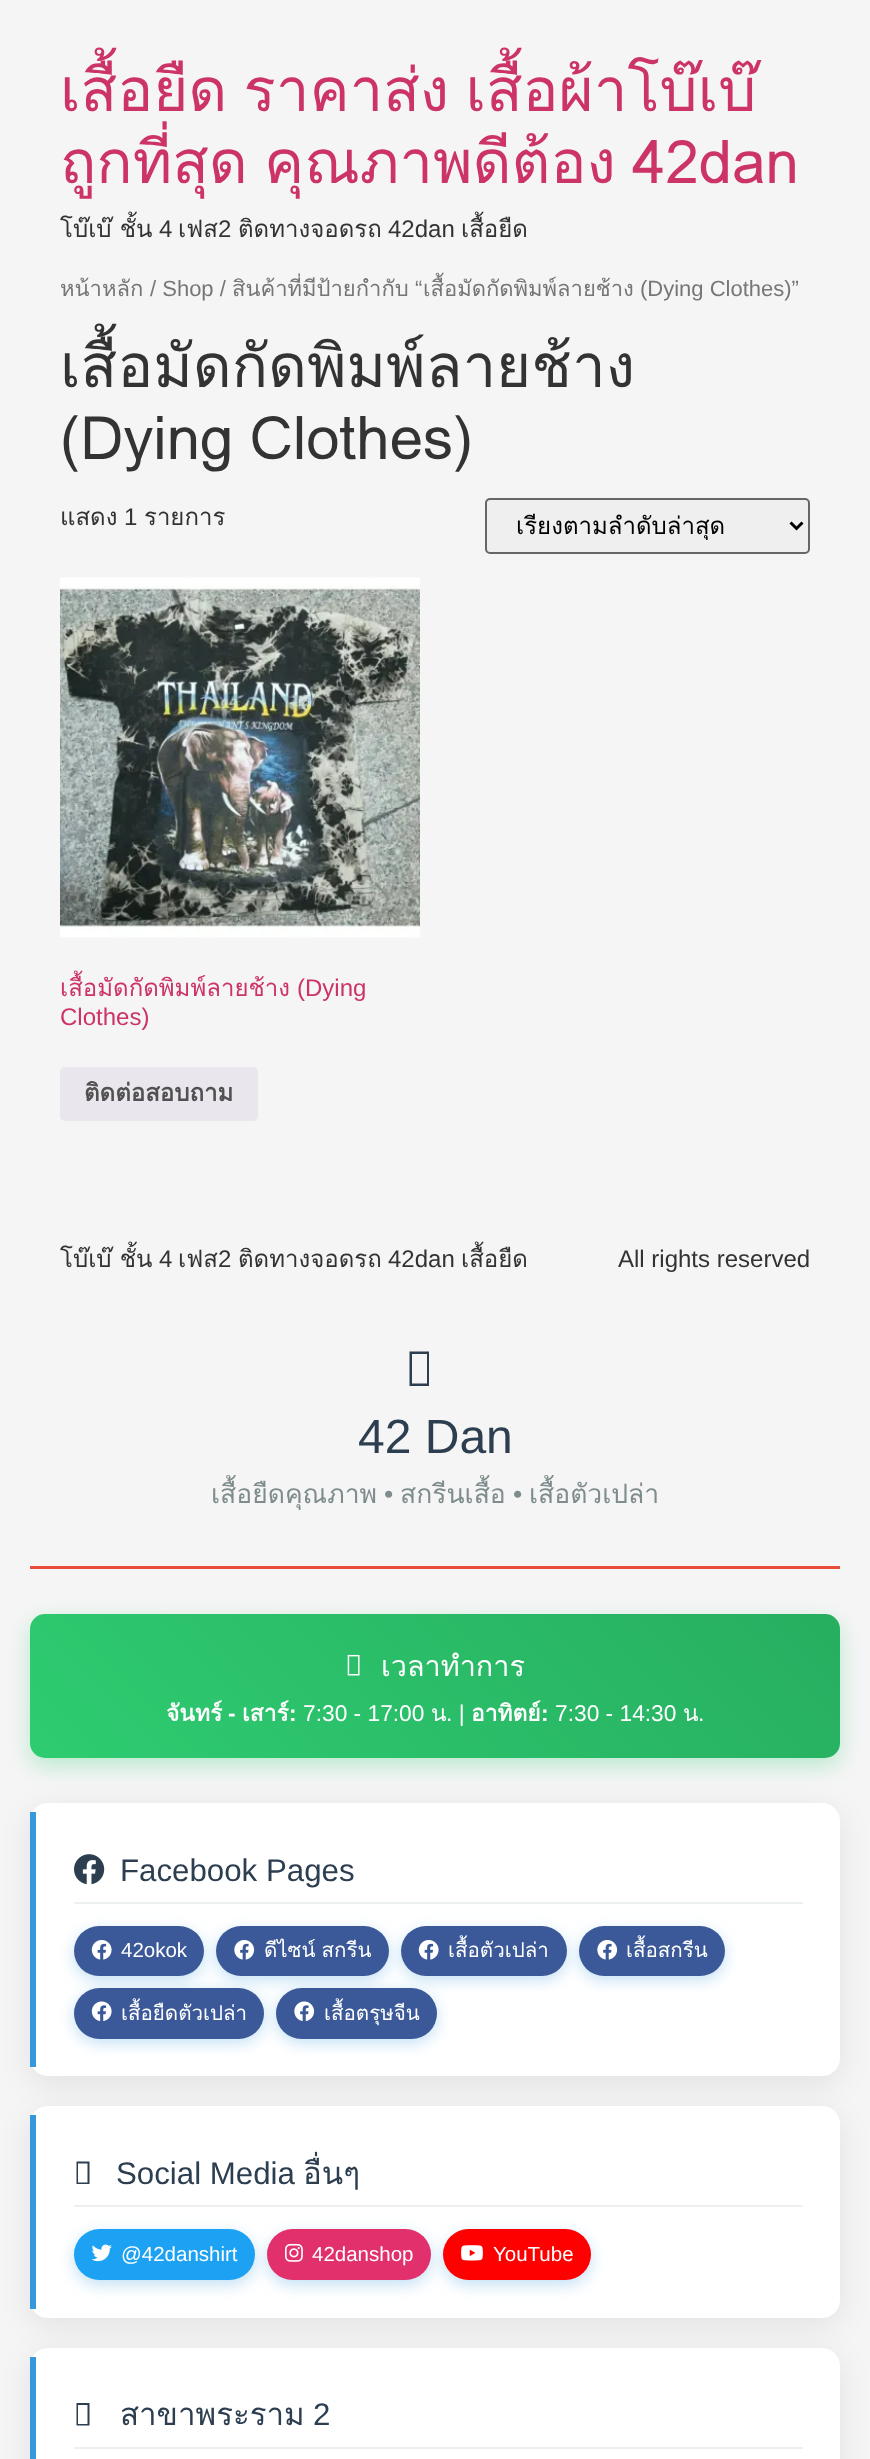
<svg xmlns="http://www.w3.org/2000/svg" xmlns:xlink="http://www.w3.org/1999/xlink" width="870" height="2459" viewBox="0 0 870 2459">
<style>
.cls-1{font:60px Loma;fill:#cc3366}
.cls-2{font:24px Loma;fill:#333333}
.cls-3{font:24px Liberation Sans;fill:#333333}
.cls-4{font:22px Loma;fill:#767676}
.cls-5{font:22px Liberation Sans;fill:#767676}
.cls-6{font:60px Loma;fill:#333333}
.cls-7{font:24px Loma;fill:#000000}
.cls-8{font:24px Loma;fill:#cc3366}
.cls-9{font:24px Liberation Sans;fill:#cc3366}
.cls-10{font:bold 24px Loma;fill:#515151}
.cls-11{font:48px Liberation Sans;fill:#2c3e50}
.cls-12{font:26.5px Loma;fill:#7f8c8d}
.cls-13{font:26.5px Liberation Sans;fill:#7f8c8d}
.cls-14{font:28.75px Loma;fill:#ffffff}
.cls-15{font:bold 22.75px Loma;fill:#ffffff}
.cls-16{font:bold 22.75px Liberation Sans;fill:#ffffff}
.cls-17{font:22.75px Liberation Sans;fill:#ffffff}
.cls-18{font:22.75px Loma;fill:#ffffff}
.cls-19{font:31.25px Liberation Sans;fill:#2c3e50}
.cls-20{font:20.5px Liberation Sans;fill:#ffffff}
.cls-21{font:20.5px Loma;fill:#ffffff}
.cls-22{font:31.25px Loma;fill:#2c3e50}
</style>
<defs>
<linearGradient id="g1" gradientUnits="userSpaceOnUse" x1="197" y1="1925" x2="674" y2="1448"><stop offset="0" stop-color="#2ecc71"/><stop offset="1" stop-color="#27ae60"/></linearGradient>
<clipPath id="clip1"><rect x="516" y="512" width="245" height="28"/></clipPath>
</defs>
<rect width="100%" height="100%" fill="#f5f5f5"/>
<rect fill="#efefef" stroke="#666666" stroke-width="2" x="486" y="499" width="323" height="54" rx="4"/>
<path fill="none" stroke="#000000" stroke-width="3" d="M790.5 522.5L796.5 528.5L802.5 522.5"/>
<image xlink:href="image0.png" x="60" y="577" width="360" height="361"/>
<rect fill="#e9e6ed" x="60" y="1067" width="198" height="54" rx="5"/>
<rect fill="#e74c3c" x="30" y="1566" width="810" height="3"/>
<path fill="#2c3e50" d="M409.5 1386V1351.5H429V1386ZM412 1383.5H427V1354H412Z"/>
<rect fill="#2ecc71" fill-opacity="0.3" filter="blur(11px)" x="30" y="1622" width="810" height="144" rx="15"/>
<rect fill="url(#g1)" x="30" y="1614" width="810" height="144" rx="15"/>
<image xlink:href="image1.png" x="347" y="1654" width="13" height="22"/>
<rect fill="#000000" fill-opacity="0.08" filter="blur(15px)" x="30" y="1811" width="810" height="273" rx="18"/>
<rect fill="#ffffff" x="30" y="1803" width="810" height="273" rx="18"/>
<rect fill="#3498db" x="30" y="1812" width="6" height="255"/>
<rect fill="#ecf0f1" x="74" y="1902" width="729" height="2"/>
<image xlink:href="image2.png" x="74" y="1854" width="31" height="31"/>
<rect fill="#3498db" fill-opacity="0.3" filter="blur(7.5px)" x="74" y="1931" width="130" height="49" rx="24.5"/>
<rect fill="#3b5998" x="74" y="1926" width="130" height="50" rx="25"/>
<image xlink:href="image3.png" x="91" y="1940" width="21" height="20"/>
<rect fill="#3498db" fill-opacity="0.3" filter="blur(7.5px)" x="216" y="1931" width="173" height="49" rx="24.5"/>
<rect fill="#3b5998" x="216" y="1926" width="173" height="50" rx="25"/>
<image xlink:href="image4.png" x="234" y="1940" width="21" height="20"/>
<rect fill="#3498db" fill-opacity="0.3" filter="blur(7.5px)" x="401" y="1931" width="166" height="49" rx="24.5"/>
<rect fill="#3b5998" x="401" y="1926" width="166" height="50" rx="25"/>
<image xlink:href="image3.png" x="418" y="1940" width="21" height="20"/>
<rect fill="#3498db" fill-opacity="0.3" filter="blur(7.5px)" x="579" y="1931" width="146" height="49" rx="24.5"/>
<rect fill="#3b5998" x="579" y="1926" width="146" height="50" rx="25"/>
<image xlink:href="image4.png" x="597" y="1940" width="21" height="20"/>
<rect fill="#3498db" fill-opacity="0.3" filter="blur(7.5px)" x="74" y="1992" width="190" height="51" rx="25.5"/>
<rect fill="#3b5998" x="74" y="1988" width="190" height="51" rx="25.5"/>
<image xlink:href="image5.png" x="91" y="2001" width="21" height="21"/>
<rect fill="#3498db" fill-opacity="0.3" filter="blur(7.5px)" x="276" y="1992" width="161" height="51" rx="25.5"/>
<rect fill="#3b5998" x="276" y="1988" width="161" height="51" rx="25.5"/>
<image xlink:href="image6.png" x="294" y="2001" width="21" height="21"/>
<rect fill="#000000" fill-opacity="0.08" filter="blur(15px)" x="30" y="2114" width="810" height="211" rx="18"/>
<rect fill="#ffffff" x="30" y="2106" width="810" height="212" rx="18"/>
<rect fill="#3498db" x="30" y="2115" width="6" height="194"/>
<rect fill="#ecf0f1" x="74" y="2205" width="729" height="2"/>
<path fill="#2c3e50" d="M76.5 2184V2161.5H89.5V2184ZM78 2182.5H87.5V2163.5H78Z"/>
<rect fill="#3498db" fill-opacity="0.3" filter="blur(7.5px)" x="74" y="2234" width="181" height="51" rx="25.5"/>
<rect fill="#1da1f2" x="74" y="2229" width="181" height="51" rx="25.5"/>
<image xlink:href="image7.png" x="91" y="2244" width="21" height="18"/>
<rect fill="#3498db" fill-opacity="0.3" filter="blur(7.5px)" x="267" y="2234" width="164" height="51" rx="25.5"/>
<rect fill="#e1306c" x="267" y="2229" width="164" height="51" rx="25.5"/>
<image xlink:href="image8.png" x="285" y="2243" width="18" height="19"/>
<rect fill="#3498db" fill-opacity="0.3" filter="blur(7.5px)" x="443" y="2234" width="148" height="51" rx="25.5"/>
<rect fill="#ff0000" x="443" y="2229" width="148" height="51" rx="25.5"/>
<image xlink:href="image9.png" x="461" y="2245" width="22" height="16"/>
<rect fill="#000000" fill-opacity="0.08" filter="blur(15px)" x="30" y="2355" width="810" height="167" rx="18"/>
<rect fill="#ffffff" x="30" y="2348" width="810" height="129" rx="18"/>
<rect fill="#3498db" x="30" y="2357" width="6" height="102"/>
<rect fill="#ecf0f1" x="74" y="2447" width="729" height="2"/>
<path fill="#2c3e50" d="M76.5 2425.5V2403H89.5V2425.5ZM78 2424H87.5V2405H78Z"/>
<text class="cls-1"><tspan x="60" y="111" word-spacing="-4">เสื้อยืด ราคาส่ง เสื้อผ้าโบ๊เบ๊</tspan><tspan x="60" y="183" word-spacing="-4">ถูกที่สุด คุณภาพดีต้อง 42dan</tspan></text>
<text class="cls-2" x="60" y="237">โบ๊เบ๊ ชั้น</text>
<text class="cls-3" x="159" y="237">4</text>
<text class="cls-2" x="178" y="237">เฟส</text>
<text class="cls-3" x="218" y="237">2</text>
<text class="cls-2" x="238" y="237">ติดทางจอดรถ</text>
<text class="cls-3" x="388" y="237">42dan</text>
<text class="cls-2" x="461" y="237">เสื้อยืด</text>
<text class="cls-4" x="60" y="296">หน้าหลัก</text>
<text class="cls-5" x="150" y="296">/ Shop /</text>
<text class="cls-4" x="232" y="296">สินค้าที่มีป้ายกำกับ</text>
<text class="cls-5" x="415" y="296">“</text>
<text class="cls-4" x="423" y="296">เสื้อมัดกัดพิมพ์ลายช้าง</text>
<text class="cls-5" x="640" y="296">(Dying Clothes)”</text>
<text class="cls-6"><tspan x="60" y="387">เสื้อมัดกัดพิมพ์ลายช้าง</tspan><tspan x="60" y="459" word-spacing="-4">(Dying Clothes)</tspan></text>
<text class="cls-2" x="60" y="525">แสดง</text>
<text class="cls-3" x="124" y="525">1</text>
<text class="cls-2" x="144" y="525">รายการ</text>
<g clip-path="url(#clip1)">
<text class="cls-7" x="516" y="534">เรียงตามลำดับล่าสุด</text>
</g>
<text class="cls-8" x="60" y="996">เสื้อมัดกัดพิมพ์ลายช้าง</text>
<text class="cls-9" x="297" y="996">(Dying</text>
<text class="cls-9" x="60" y="1025">Clothes)</text>
<text class="cls-10" x="84" y="1101">ติดต่อสอบถาม</text>
<text class="cls-2" x="60" y="1267">โบ๊เบ๊ ชั้น</text>
<text class="cls-3" x="159" y="1267">4</text>
<text class="cls-2" x="178" y="1267">เฟส</text>
<text class="cls-3" x="218" y="1267">2</text>
<text class="cls-2" x="238" y="1267">ติดทางจอดรถ</text>
<text class="cls-3" x="388" y="1267">42dan</text>
<text class="cls-2" x="461" y="1267">เสื้อยืด</text>
<text class="cls-3" x="618" y="1267">All rights reserved</text>
<text class="cls-11" x="358" y="1453">42 Dan</text>
<text class="cls-12" x="211" y="1503">เสื้อยืดคุณภาพ</text>
<text class="cls-13" x="384" y="1503">•</text>
<text class="cls-12" x="400" y="1503">สกรีนเสื้อ</text>
<text class="cls-13" x="513" y="1503">•</text>
<text class="cls-12" x="529" y="1503">เสื้อตัวเปล่า</text>
<text class="cls-14" x="381" y="1676">เวลาทำการ</text>
<text class="cls-15" x="166" y="1721">จันทร์</text>
<text class="cls-16" x="228" y="1721">-</text>
<text class="cls-15" x="242" y="1721">เสาร์</text>
<text class="cls-16" x="289" y="1721">:</text>
<text class="cls-17" x="303" y="1721">7:30 - 17:00</text>
<text class="cls-18" x="431" y="1721">น</text>
<text class="cls-17" x="446" y="1721">. |</text>
<text class="cls-15" x="471" y="1721">อาทิตย์</text>
<text class="cls-16" x="541" y="1721">:</text>
<text class="cls-17" x="555" y="1721">7:30 - 14:30</text>
<text class="cls-18" x="683" y="1721">น</text>
<text class="cls-17" x="698" y="1721">.</text>
<text class="cls-19" x="120" y="1881">Facebook Pages</text>
<text class="cls-20" x="121" y="1957">42okok</text>
<text class="cls-21" x="264" y="1957" word-spacing="-1">ดีไซน์ สกรีน</text>
<text class="cls-21" x="448" y="1957">เสื้อตัวเปล่า</text>
<text class="cls-21" x="626" y="1957">เสื้อสกรีน</text>
<text class="cls-21" x="121" y="2020">เสื้อยืดตัวเปล่า</text>
<text class="cls-21" x="324" y="2020">เสื้อตรุษจีน</text>
<text class="cls-19" x="116" y="2184">Social Media</text>
<text class="cls-22" x="303" y="2184">อื่นๆ</text>
<text class="cls-20" x="121" y="2261">@42danshirt</text>
<text class="cls-20" x="312" y="2261">42danshop</text>
<text class="cls-20" x="493" y="2261">YouTube</text>
<text class="cls-22" x="120" y="2425">สาขาพระราม</text>
<text class="cls-19" x="313" y="2425">2</text>
</svg>
